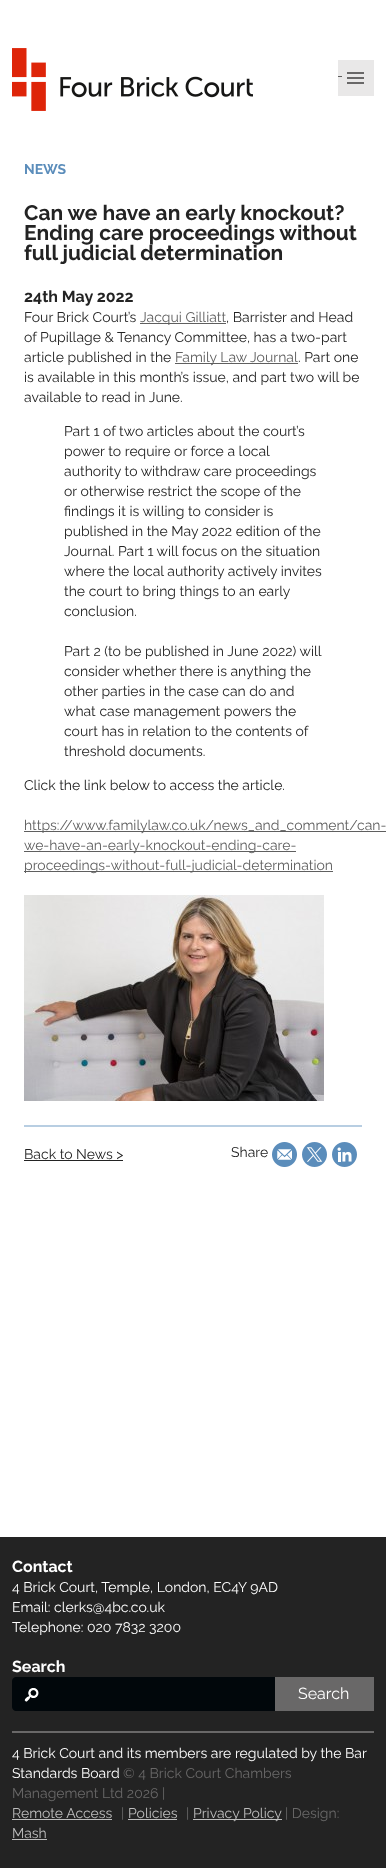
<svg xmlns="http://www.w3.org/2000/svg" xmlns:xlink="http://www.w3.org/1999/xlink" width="386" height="1868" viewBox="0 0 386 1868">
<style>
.cls-1{font:bold 14px Raleway;fill:#5b8dbb}
.cls-2{font:bold 21px Raleway;fill:#232323}
.cls-3{font:bold 16px Raleway;fill:#232323}
.cls-4{font:14px Raleway;fill:#232323}
.cls-5{font:14px Raleway;fill:#5f5f5f}
.cls-6{font:bold 16px Raleway;fill:#ffffff}
.cls-7{font:14px Raleway;fill:#ffffff}
.cls-8{font:16px Raleway;fill:#ffffff}
.cls-9{font:14px Raleway;fill:#696868}
.cls-10{font:14px Raleway;fill:#bdbdbd}
</style>
<rect width="100%" height="100%" fill="#ffffff"/>
<image xlink:href="image0.png" x="12" y="48" width="241" height="63"/>
<image xlink:href="image1.png" x="338" y="60" width="36" height="36"/>
<rect fill="#5f5f5f" x="338" y="76" width="4" height="1"/>
<rect fill="#5f5f5f" x="140" y="323" width="86" height="1"/>
<rect fill="#5f5f5f" x="175" y="363" width="123" height="1"/>
<rect fill="#5f5f5f" x="24" y="831" width="362" height="1"/>
<rect fill="#5f5f5f" x="24" y="851" width="272" height="1"/>
<rect fill="#5f5f5f" x="24" y="871" width="309" height="1"/>
<image xlink:href="image2.png" x="24" y="895" width="300" height="206"/>
<rect fill="#b8cee2" x="24" y="1125" width="338" height="2"/>
<rect fill="#232323" x="24" y="1160" width="99" height="1"/>
<image xlink:href="image3.png" x="272" y="1142" width="25" height="25"/>
<image xlink:href="image4.png" x="302" y="1142" width="25" height="25"/>
<image xlink:href="image5.png" x="332" y="1142" width="25" height="25"/>
<rect fill="#232323" x="0" y="1537" width="386" height="331"/>
<path fill="#01070b" d="M16 1677H51V1711H16C14 1711 12 1709 12 1707V1681C12 1679 14 1677 16 1677Z"/>
<image xlink:href="image6.png" x="24" y="1688" width="15" height="14"/>
<rect fill="#01070b" x="51" y="1677" width="224" height="34"/>
<rect fill="#696868" x="275" y="1677" width="99" height="34"/>
<rect fill="#696868" x="12" y="1731" width="362" height="2"/>
<rect fill="#bdbdbd" x="12" y="1819" width="100" height="1"/>
<rect fill="#bdbdbd" x="128" y="1819" width="49" height="1"/>
<rect fill="#bdbdbd" x="193" y="1819" width="89" height="1"/>
<rect fill="#bdbdbd" x="12" y="1839" width="35" height="1"/>
<text class="cls-1" x="24" y="174">NEWS</text>
<text class="cls-2"><tspan x="24" y="220">Can we have an early knockout?</tspan><tspan x="24" y="240">Ending care proceedings without</tspan><tspan x="24" y="260">full judicial determination</tspan></text>
<text class="cls-3" x="24" y="302">24th May 2022</text>
<text class="cls-4" x="24" y="322">Four Brick Court’s</text>
<text class="cls-5" x="140" y="322">Jacqui Gilliatt</text>
<text class="cls-4" x="226" y="322">, Barrister and Head</text>
<text class="cls-4"><tspan x="24" y="342">of Pupillage &amp; Tenancy Committee, has a two-part</tspan><tspan x="24" y="362">article published in the</tspan></text>
<text class="cls-5" x="175" y="362">Family Law Journal</text>
<text class="cls-4" x="298" y="362">. Part one</text>
<text class="cls-4"><tspan x="24" y="382">is available in this month’s issue, and part two will be</tspan><tspan x="24" y="402">available to read in June.</tspan></text>
<text class="cls-4"><tspan x="64" y="436">Part 1 of two articles about the court’s</tspan><tspan x="64" y="456">power to require or force a local</tspan><tspan x="64" y="476">authority to withdraw care proceedings</tspan><tspan x="64" y="496">or otherwise restrict the scope of the</tspan><tspan x="64" y="516">findings it is willing to consider is</tspan><tspan x="64" y="536">published in the May 2022 edition of the</tspan><tspan x="64" y="556">Journal. Part 1 will focus on the situation</tspan><tspan x="64" y="576">where the local authority actively invites</tspan><tspan x="64" y="596">the court to bring things to an early</tspan><tspan x="64" y="616">conclusion.</tspan></text>
<text class="cls-4"><tspan x="64" y="656">Part 2 (to be published in June 2022) will</tspan><tspan x="64" y="676">consider whether there is anything the</tspan><tspan x="64" y="696">other parties in the case can do and</tspan><tspan x="64" y="716">what case management powers the</tspan><tspan x="64" y="736">court has in relation to the contents of</tspan><tspan x="64" y="756">threshold documents.</tspan></text>
<text class="cls-4" x="24" y="790">Click the link below to access the article.</text>
<text class="cls-5"><tspan x="24" y="830">https://www.familylaw.co.uk/news_and_comment/can-</tspan><tspan x="24" y="850">we-have-an-early-knockout-ending-care-</tspan><tspan x="24" y="870">proceedings-without-full-judicial-determination</tspan></text>
<text class="cls-4" x="24" y="1159">Back to News &gt;</text>
<text class="cls-4" x="231" y="1157">Share</text>
<text class="cls-6" x="12" y="1572">Contact</text>
<text class="cls-7"><tspan x="12" y="1592">4 Brick Court, Temple, London, EC4Y 9AD</tspan><tspan x="12" y="1612">Email: clerks@4bc.co.uk</tspan><tspan x="12" y="1632">Telephone: 020 7832 3200</tspan></text>
<text class="cls-6" x="12" y="1672">Search</text>
<text class="cls-8" x="298" y="1699">Search</text>
<text class="cls-7"><tspan x="12" y="1758">4 Brick Court and its members are regulated by the Bar</tspan><tspan x="12" y="1778">Standards Board</tspan></text>
<text class="cls-9" x="123" y="1778">© 4 Brick Court Chambers</text>
<text class="cls-9" x="12" y="1798">Management Ltd 2026 |</text>
<text class="cls-10" x="12" y="1818">Remote Access</text>
<text class="cls-9" x="121" y="1818">|</text>
<text class="cls-10" x="128" y="1818">Policies</text>
<text class="cls-9" x="186" y="1818">|</text>
<text class="cls-10" x="193" y="1818">Privacy Policy</text>
<text class="cls-9" x="285" y="1818">| Design:</text>
<text class="cls-10" x="12" y="1838">Mash</text>
</svg>
